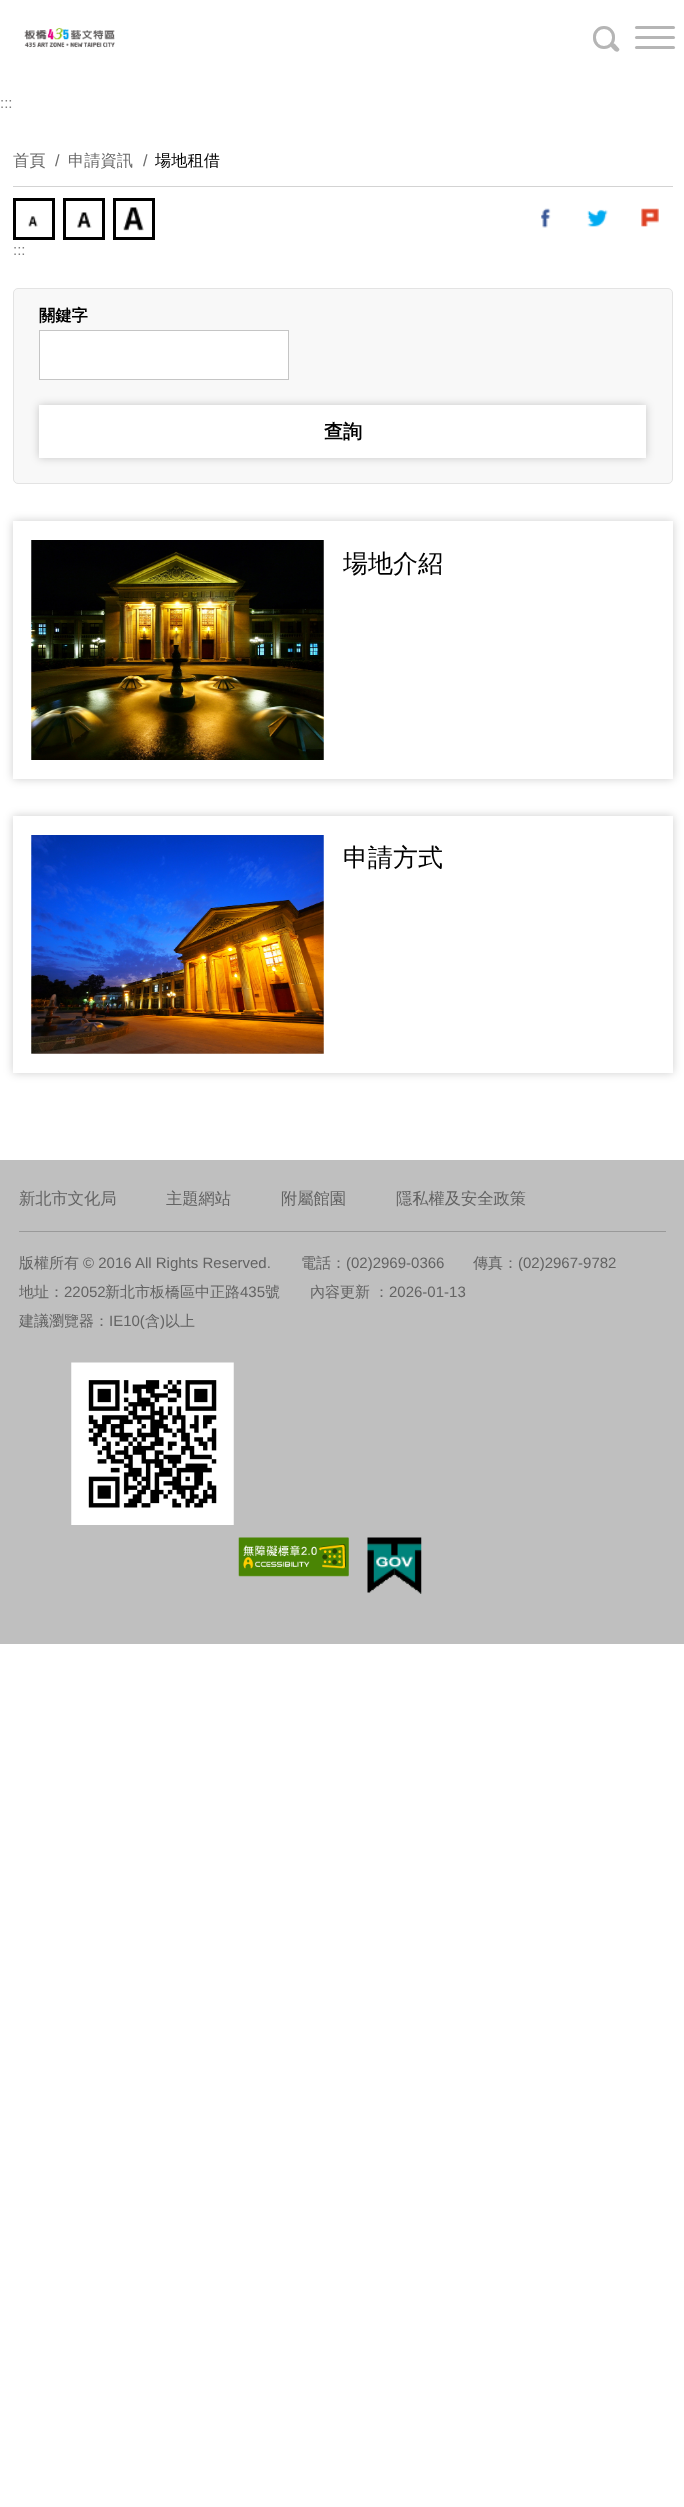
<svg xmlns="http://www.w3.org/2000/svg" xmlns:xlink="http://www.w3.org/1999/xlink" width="684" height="2507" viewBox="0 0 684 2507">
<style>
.cls-1{font:15px Liberation Sans;fill:#7f7f7f}
.cls-2{font:500 16.25px WenQuanYi Zen Hei;fill:#696969}
.cls-3{font:16.25px Liberation Sans;fill:#696969}
.cls-4{font:500 16.25px WenQuanYi Zen Hei;fill:#000000}
.cls-5{font:bold 16.25px WenQuanYi Zen Hei;fill:#000000}
.cls-6{font:bold 19px WenQuanYi Zen Hei;fill:#000000}
.cls-7{font:500 25px WenQuanYi Zen Hei;fill:#000000}
.cls-8{font:500 16.25px WenQuanYi Zen Hei;fill:#636363}
.cls-9{font:500 15px WenQuanYi Zen Hei;fill:#636363}
.cls-10{font:15px Liberation Sans;fill:#636363}
</style>
<rect width="100%" height="100%" fill="#ffffff"/>
<rect fill="none" stroke="#e9e9e9" stroke-width="3" x="594.5" y="27.5" width="19" height="20" rx="9.5"/>
<image xlink:href="image0.png" x="24" y="27" width="91" height="21"/>
<rect fill="none" stroke="#b5b5b5" stroke-width="3" x="594.5" y="27.5" width="19" height="20" rx="9.5"/>
<rect fill="#b5b5b5" x="635" y="26" width="40" height="3" rx="1.5"/>
<rect fill="#b5b5b5" x="635" y="36" width="40" height="3" rx="1.5"/>
<rect fill="#b5b5b5" x="635" y="46" width="40" height="3" rx="1.5"/>
<path fill="#b5b5b5" d="M615 44L619 48.5C619.5 49 619.5 50 619 50.5C616.5 54 613 49 611.5 47.5C609.5 45 612.5 41.5 615 44Z"/>
<rect fill="#d3d3d3" x="13" y="186" width="660" height="1"/>
<rect fill="none" stroke="#000000" stroke-width="3" x="14.5" y="199.5" width="39" height="39"/>
<image xlink:href="image1.png" x="28" y="216" width="10" height="11"/>
<rect fill="none" stroke="#000000" stroke-width="3" x="64.5" y="199.5" width="39" height="39"/>
<image xlink:href="image2.png" x="77" y="212" width="15" height="16"/>
<rect fill="none" stroke="#000000" stroke-width="3" x="114.5" y="199.5" width="39" height="39"/>
<image xlink:href="image3.png" x="123" y="207" width="21" height="24"/>
<image xlink:href="image4.png" x="541" y="208" width="10" height="20"/>
<image xlink:href="image5.png" x="587" y="209" width="21" height="18"/>
<image xlink:href="image6.png" x="641" y="208" width="18" height="19"/>
<rect fill="#f8f8f8" stroke="#e3e3e3" x="13.5" y="288.5" width="659" height="195" rx="4.5"/>
<rect fill="#ffffff" stroke="#c5c5c5" x="39.5" y="330.5" width="249" height="49"/>
<rect fill="#000000" fill-opacity="0.2" filter="blur(4px)" x="39" y="405" width="607" height="53"/>
<rect fill="#ffffff" x="39" y="405" width="607" height="53"/>
<rect fill="#000000" fill-opacity="0.2" filter="blur(5px)" x="13" y="521" width="660" height="258"/>
<rect fill="#ffffff" x="13" y="521" width="660" height="258"/>
<image xlink:href="image7.png" x="31" y="540" width="293" height="220"/>
<rect fill="#000000" fill-opacity="0.2" filter="blur(5px)" x="13" y="816" width="660" height="257"/>
<rect fill="#ffffff" x="13" y="816" width="660" height="257"/>
<image xlink:href="image8.png" x="31" y="835" width="293" height="219"/>
<rect fill="#bfbfbf" x="0" y="1160" width="684" height="484"/>
<rect fill="#999999" x="19" y="1231" width="647" height="1"/>
<image xlink:href="image9.png" x="71" y="1362" width="163" height="163"/>
<image xlink:href="image10.png" x="238" y="1537" width="111" height="40"/>
<image xlink:href="image11.png" x="367" y="1537" width="55" height="57"/>
<text class="cls-1" x="0" y="108">:::</text>
<text class="cls-2" x="13" y="166">首頁</text>
<text class="cls-3" x="55" y="166">/</text>
<text class="cls-2" x="68" y="166">申請資訊</text>
<text class="cls-3" x="143" y="166">/</text>
<text class="cls-4" x="155" y="166">場地租借</text>
<text class="cls-1" x="13" y="255">:::</text>
<text class="cls-5" x="39" y="321">關鍵字</text>
<text class="cls-6" x="324" y="438">查詢</text>
<text class="cls-7" x="343" y="572">場地介紹</text>
<text class="cls-7" x="343" y="866">申請方式</text>
<text class="cls-8" x="19" y="1204">新北市文化局</text>
<text class="cls-8" x="166" y="1204">主題網站</text>
<text class="cls-8" x="281" y="1204">附屬館園</text>
<text class="cls-8" x="396" y="1204">隱私權及安全政策</text>
<text class="cls-9" x="19" y="1268">版權所有</text>
<text class="cls-10" x="83" y="1268">© 2016 All Rights Reserved.</text>
<text class="cls-9" x="301" y="1268">電話：</text>
<text class="cls-10" x="346" y="1268">(02)2969-0366</text>
<text class="cls-9" x="473" y="1268">傳真：</text>
<text class="cls-10" x="518" y="1268">(02)2967-9782</text>
<text class="cls-9" x="19" y="1297">地址：</text>
<text class="cls-10" x="64" y="1297">22052</text>
<text class="cls-9" x="105" y="1297">新北市板橋區中正路</text>
<text class="cls-10" x="240" y="1297">435</text>
<text class="cls-9" x="265" y="1297">號</text>
<text class="cls-9" x="310" y="1297">內容更新</text>
<text class="cls-9" x="374" y="1297">：</text>
<text class="cls-10" x="389" y="1297">2026-01-13</text>
<text class="cls-9" x="19" y="1326">建議瀏覽器：</text>
<text class="cls-10" x="109" y="1326">IE10(</text>
<text class="cls-9" x="145" y="1326">含</text>
<text class="cls-10" x="160" y="1326">)</text>
<text class="cls-9" x="165" y="1326">以上</text>
</svg>
